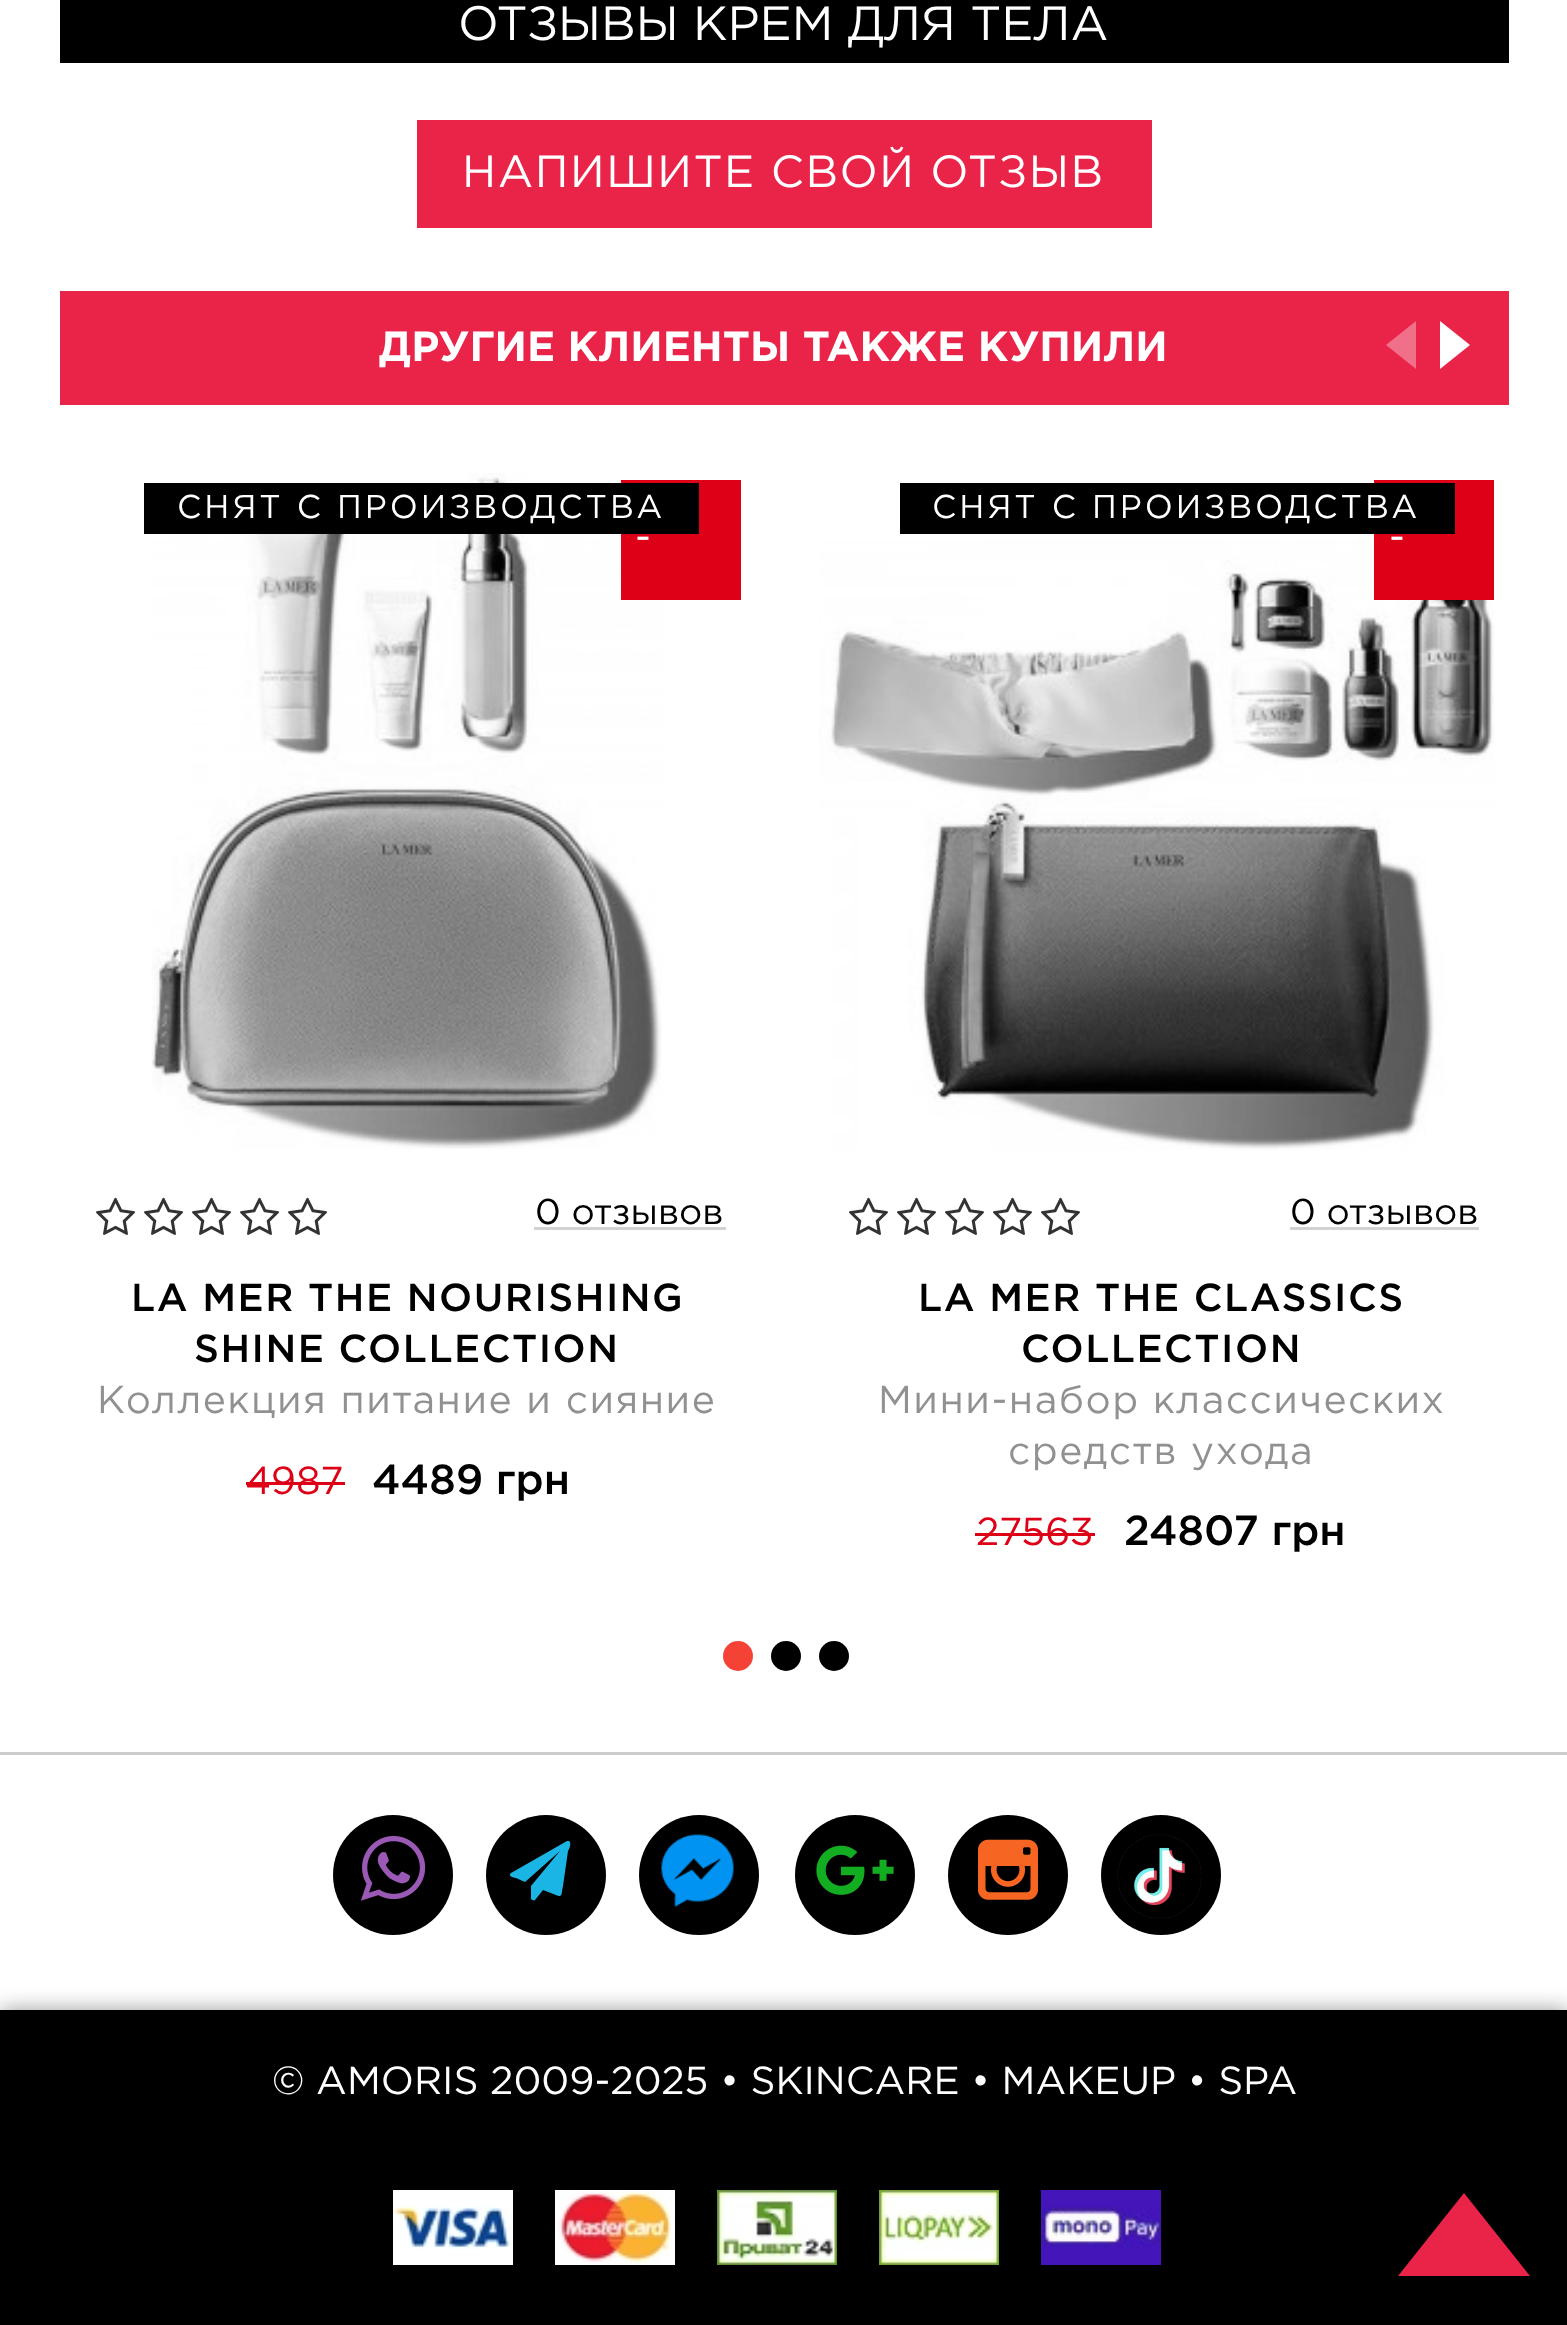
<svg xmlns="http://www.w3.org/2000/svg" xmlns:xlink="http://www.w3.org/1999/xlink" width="1567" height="2325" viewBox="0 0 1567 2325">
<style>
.cls-1{font:48px Gotham;fill:#ffffff}
.cls-2{font:45px Gotham;letter-spacing:1.5px;fill:#ffffff}
.cls-3{font:bold 42px Gotham;fill:#ffffff}
.cls-4{font:33px Gotham;letter-spacing:3px;fill:#ffffff}
.cls-5{font:39px Gotham;fill:#ffffff}
.cls-6{font:36px Gotham;fill:#000000}
.cls-7{font:500 39px Gotham;letter-spacing:1.5px;fill:#000000}
.cls-8{font:39px Gotham;letter-spacing:1.5px;fill:#919191}
.cls-9{font:39px Gotham;fill:#dd0017}
.cls-10{font:500 42px Gotham;fill:#000000}
</style>
<rect width="100%" height="100%" fill="#ffffff"/>
<rect fill="#000000" x="60" y="0" width="1449" height="63"/>
<rect fill="#ea2349" x="417" y="120" width="735" height="108"/>
<rect fill="#ea2349" x="60" y="291" width="1449" height="114"/>
<path fill="#f17089" d="M1416 369V321L1386 345Z"/>
<path fill="#ffffff" d="M1440 321V369L1470 345Z"/>
<image xlink:href="image0.png" x="151" y="473" width="511" height="676"/>
<rect fill="#dd0017" x="621" y="480" width="120" height="120"/>
<rect fill="#000000" x="144" y="483" width="555" height="51"/>
<image xlink:href="image1.png" x="96" y="1197" width="39" height="38"/>
<image xlink:href="image1.png" x="144" y="1197" width="39" height="38"/>
<image xlink:href="image1.png" x="192" y="1197" width="39" height="38"/>
<image xlink:href="image1.png" x="240" y="1197" width="39" height="38"/>
<image xlink:href="image1.png" x="288" y="1197" width="39" height="38"/>
<rect fill="#d2d2d2" x="534" y="1227" width="192" height="3"/>
<rect fill="#dd0017" x="246" y="1482" width="99" height="3"/>
<image xlink:href="image2.png" x="819" y="539" width="675" height="611"/>
<rect fill="#dd0017" x="1374" y="480" width="120" height="120"/>
<rect fill="#000000" x="900" y="483" width="555" height="51"/>
<image xlink:href="image1.png" x="849" y="1197" width="39" height="38"/>
<image xlink:href="image1.png" x="897" y="1197" width="39" height="38"/>
<image xlink:href="image1.png" x="945" y="1197" width="39" height="38"/>
<image xlink:href="image1.png" x="993" y="1197" width="39" height="38"/>
<image xlink:href="image1.png" x="1041" y="1197" width="39" height="38"/>
<rect fill="#d2d2d2" x="1290" y="1227" width="189" height="3"/>
<rect fill="#dd0017" x="975" y="1533" width="120" height="3"/>
<circle fill="#f44336" cx="738" cy="1656" r="15"/>
<circle fill="#000000" cx="786" cy="1656" r="15"/>
<circle fill="#000000" cx="834" cy="1656" r="15"/>
<rect fill="#cccccc" x="0" y="1752" width="1567" height="3"/>
<circle fill="#000000" cx="393" cy="1875" r="60"/>
<image xlink:href="image3.png" x="360" y="1836" width="66" height="65"/>
<circle fill="#000000" cx="546" cy="1875" r="60"/>
<path fill="#1ab5e4" d="M569 1841C572 1843 569 1850 568 1851L563 1886C561 1894 563 1898 556 1895L543 1890L535 1900C534 1901 532 1900 531 1899V1886L560 1851L525 1882L516 1878C515 1878 507 1876 511 1873L567 1841Z"/>
<circle fill="#000000" cx="699" cy="1875" r="60"/>
<image xlink:href="image4.png" x="661" y="1834" width="73" height="73"/>
<circle fill="#000000" cx="855" cy="1875" r="60"/>
<image xlink:href="image5.png" x="816" y="1845" width="78" height="50"/>
<circle fill="#000000" cx="1008" cy="1875" r="60"/>
<image xlink:href="image6.png" x="978" y="1839" width="60" height="61"/>
<circle fill="#000000" cx="1161" cy="1875" r="60"/>
<image xlink:href="image7.png" x="1117" y="1834" width="85" height="85"/>
<rect fill="#000000" fill-opacity="0.4" filter="blur(10.5px)" x="0" y="2010" width="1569" height="315"/>
<rect fill="#000000" x="0" y="2010" width="1567" height="315"/>
<image xlink:href="image8.png" x="393" y="2190" width="120" height="75"/>
<image xlink:href="image9.png" x="555" y="2190" width="120" height="75"/>
<image xlink:href="image10.png" x="717" y="2190" width="120" height="75"/>
<image xlink:href="image11.png" x="879" y="2190" width="120" height="75"/>
<image xlink:href="image12.png" x="1041" y="2190" width="120" height="75"/>
<path fill="#ea2349" d="M1398 2276H1530L1464 2193Z"/>
<text class="cls-1" x="458" y="40">ОТЗЫВЫ КРЕМ ДЛЯ ТЕЛА</text>
<text class="cls-2" x="462" y="187">НАПИШИТЕ СВОЙ ОТЗЫВ</text>
<text class="cls-3" x="379" y="361">ДРУГИЕ КЛИЕНТЫ ТАКЖЕ КУПИЛИ</text>
<text class="cls-4" x="177" y="518">СНЯТ С ПРОИЗВОДСТВА</text>
<text class="cls-5" x="635" y="550">-</text>
<text class="cls-6" x="535" y="1224">0 отзывов</text>
<text class="cls-7" x="131" y="1311">LA MER THE NOURISHING</text>
<text class="cls-7" x="194" y="1362">SHINE COLLECTION</text>
<text class="cls-8" x="97" y="1413">Коллекция питание и сияние</text>
<text class="cls-9" x="245" y="1494">4987</text>
<text class="cls-10" x="372" y="1494">4489 грн</text>
<text class="cls-4" x="932" y="518">СНЯТ С ПРОИЗВОДСТВА</text>
<text class="cls-5" x="1389" y="550">-</text>
<text class="cls-6" x="1290" y="1224">0 отзывов</text>
<text class="cls-7" x="918" y="1311">LA MER THE CLASSICS</text>
<text class="cls-7" x="1021" y="1362">COLLECTION</text>
<text class="cls-8" x="878" y="1413">Мини-набор классических</text>
<text class="cls-8" x="1008" y="1464">средств ухода</text>
<text class="cls-9" x="976" y="1545">27563</text>
<text class="cls-10" x="1124" y="1545">24807 грн</text>
<text class="cls-5" x="272" y="2094">© AMORIS 2009-2025 • SKINCARE • MAKEUP • SPA</text>
</svg>
